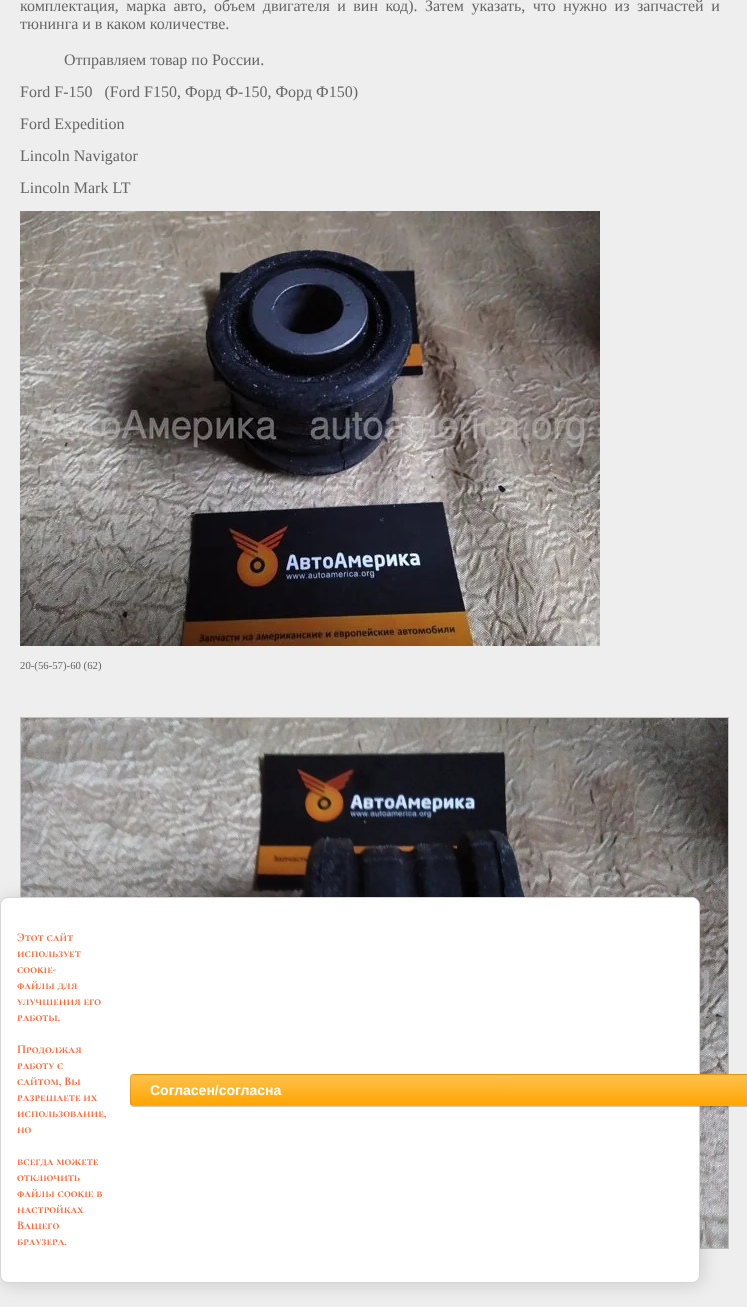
<svg xmlns="http://www.w3.org/2000/svg" xmlns:xlink="http://www.w3.org/1999/xlink" width="747" height="1307" viewBox="0 0 747 1307">
<style>
.cls-1{font:16px Liberation Serif;fill:#666666}
.cls-2{font:10.75px Liberation Serif;fill:#666666}
.cls-3{font:bold 12px Cormorant SC;fill:#ff6633}
.cls-4{font:bold 14px Liberation Sans;fill:#ffffff}
</style>
<defs>
<clipPath id="clip1"><rect x="130" y="1074" width="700" height="32" rx="4"/></clipPath>
<linearGradient id="g1" gradientUnits="userSpaceOnUse" x1="480" y1="1045" x2="480" y2="1075"><stop offset="0" stop-color="#ffc14e"/><stop offset="1" stop-color="#ffa601"/></linearGradient>
<linearGradient id="g2" gradientUnits="userSpaceOnUse" x1="480" y1="1075" x2="480" y2="1105"><stop offset="0" stop-color="#ffc14e"/><stop offset="1" stop-color="#ffa601"/></linearGradient>
<linearGradient id="g3" gradientUnits="userSpaceOnUse" x1="480" y1="1105" x2="480" y2="1135"><stop offset="0" stop-color="#ffc14e"/><stop offset="1" stop-color="#ffa601"/></linearGradient>
</defs>
<rect width="100%" height="100%" fill="#eeeeee"/>
<image xlink:href="image0.png" x="20" y="211" width="580" height="435"/>
<rect fill="none" stroke="#c0c0c0" x="20.5" y="717.5" width="708" height="531"/>
<image xlink:href="image1.png" x="21" y="718" width="707" height="530"/>
<rect fill="#000000" fill-opacity="0.14" filter="blur(9px)" x="2" y="899" width="700" height="386" rx="8"/>
<rect fill="#ffffff" stroke="#d6d6d6" x="0.5" y="897.5" width="699" height="385" rx="7.5"/>
<rect fill="#000000" fill-opacity="0.2" filter="blur(0.5px)" x="130" y="1075" width="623" height="32" rx="4"/>
<g clip-path="url(#clip1)">
<rect fill="url(#g1)" x="130" y="1074" width="617" height="1"/>
<rect fill="url(#g2)" x="130" y="1075" width="617" height="30"/>
<rect fill="url(#g3)" x="130" y="1105" width="617" height="1"/>
</g>
<rect fill="none" stroke="#000000" stroke-opacity="0.1" x="130.5" y="1074.5" width="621" height="31" rx="3.5"/>
<text class="cls-1"><tspan x="20" y="11" word-spacing="3.5">комплектация, марка авто, объем двигателя и вин код). Затем указать, что нужно из запчастей и</tspan><tspan x="20" y="29">тюнинга и в каком количестве.</tspan></text>
<text class="cls-1" x="64" y="65">Отправляем товар по России.</text>
<text class="cls-1" xml:space="preserve" x="20" y="97">Ford F-150   (Ford F150, Форд Ф-150, Форд Ф150)</text>
<text class="cls-1" x="20" y="129">Ford Expedition</text>
<text class="cls-1" x="20" y="161">Lincoln Navigator</text>
<text class="cls-1" x="20" y="193">Lincoln Mark LT</text>
<text class="cls-2" x="20" y="669">20-(56-57)-60 (62)</text>
<text class="cls-3"><tspan x="17" y="941">Этот сайт</tspan><tspan x="17" y="957">использует</tspan><tspan x="17" y="973">cookie-</tspan><tspan x="17" y="989">файлы для</tspan><tspan x="17" y="1005">улучшения его</tspan><tspan x="17" y="1021">работы.</tspan></text>
<text class="cls-3"><tspan x="17" y="1053">Продолжая</tspan><tspan x="17" y="1069">работу с</tspan><tspan x="17" y="1085">сайтом, Вы</tspan><tspan x="17" y="1101">разрешаете их</tspan><tspan x="17" y="1117">использование,</tspan><tspan x="17" y="1133">но</tspan></text>
<text class="cls-3"><tspan x="17" y="1165">всегда можете</tspan><tspan x="17" y="1181">отключить</tspan><tspan x="17" y="1197">файлы cookie в</tspan><tspan x="17" y="1213">настройках</tspan><tspan x="17" y="1229">Вашего</tspan><tspan x="17" y="1245">браузера.</tspan></text>
<text class="cls-4" x="150" y="1095">Согласен/согласна</text>
</svg>
